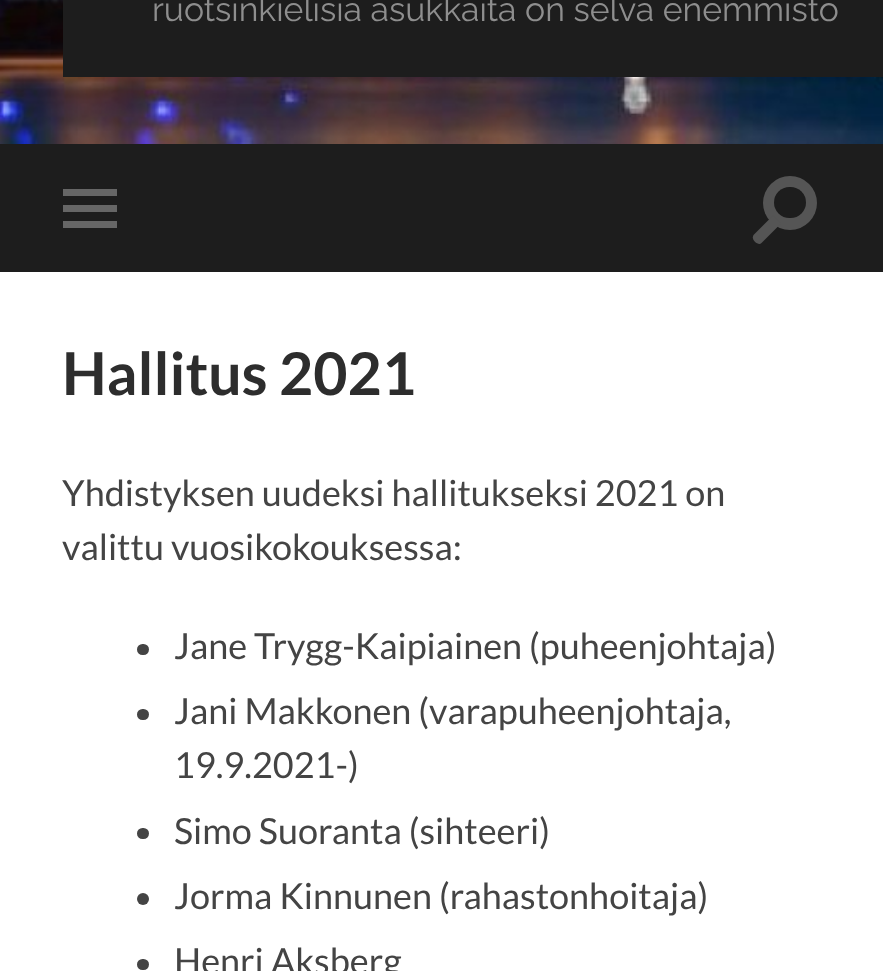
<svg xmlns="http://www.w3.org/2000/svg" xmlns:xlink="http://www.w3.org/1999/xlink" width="883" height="971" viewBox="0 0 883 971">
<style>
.cls-1{font:100 33.75px Raleway;fill:#8e8e8e}
.cls-2{font:bold 59px Lato;fill:#2d2d2d}
.cls-3{font:36px Lato;fill:#444444}
</style>
<rect width="100%" height="100%" fill="#ffffff"/>
<image xlink:href="image0.png" x="0" y="0" width="883" height="144"/>
<rect fill="#1d1d1d" x="63" y="0" width="820" height="77"/>
<rect fill="#1d1d1d" x="0" y="144" width="883" height="128"/>
<rect fill="#666666" x="63" y="189" width="54" height="7"/>
<rect fill="#666666" x="63" y="205" width="54" height="7"/>
<rect fill="#666666" x="63" y="221" width="54" height="7"/>
<circle fill="#555555" cx="790" cy="203" r="27"/>
<rect fill="#1d1d1d" x="774" y="187" width="32" height="31" rx="15.5"/>
<path fill="#555555" d="M754 234.5L773 215.5L781 223.5L761.5 243L760 244C755.5 244.5 750.5 238 754 234.5Z"/>
<rect fill="#444444" x="137" y="644" width="12" height="11" rx="5.5"/>
<rect fill="#444444" x="137" y="709" width="12" height="11" rx="5.5"/>
<rect fill="#444444" x="137" y="828" width="12" height="11" rx="5.5"/>
<circle fill="#444444" cx="143" cy="899" r="6"/>
<rect fill="#444444" x="137" y="959" width="12" height="11" rx="5.5"/>
<text class="cls-1" x="152" y="21">ruotsinkielisiä asukkaita on selvä enemmistö</text>
<text class="cls-2" x="62" y="395">Hallitus 2021</text>
<text class="cls-3"><tspan x="62" y="506">Yhdistyksen uudeksi hallitukseksi 2021 on</tspan><tspan x="62" y="560">valittu vuosikokouksessa:</tspan></text>
<text class="cls-3"><tspan x="174" y="659">Jane Trygg-Kaipiainen (puheenjohtaja)</tspan><tspan x="174" y="724">Jani Makkonen (varapuheenjohtaja,</tspan><tspan x="174" y="778">19.9.2021-)</tspan><tspan x="174" y="844">Simo Suoranta (sihteeri)</tspan><tspan x="174" y="909">Jorma Kinnunen (rahastonhoitaja)</tspan><tspan x="174" y="974">Henri Aksberg</tspan></text>
</svg>
